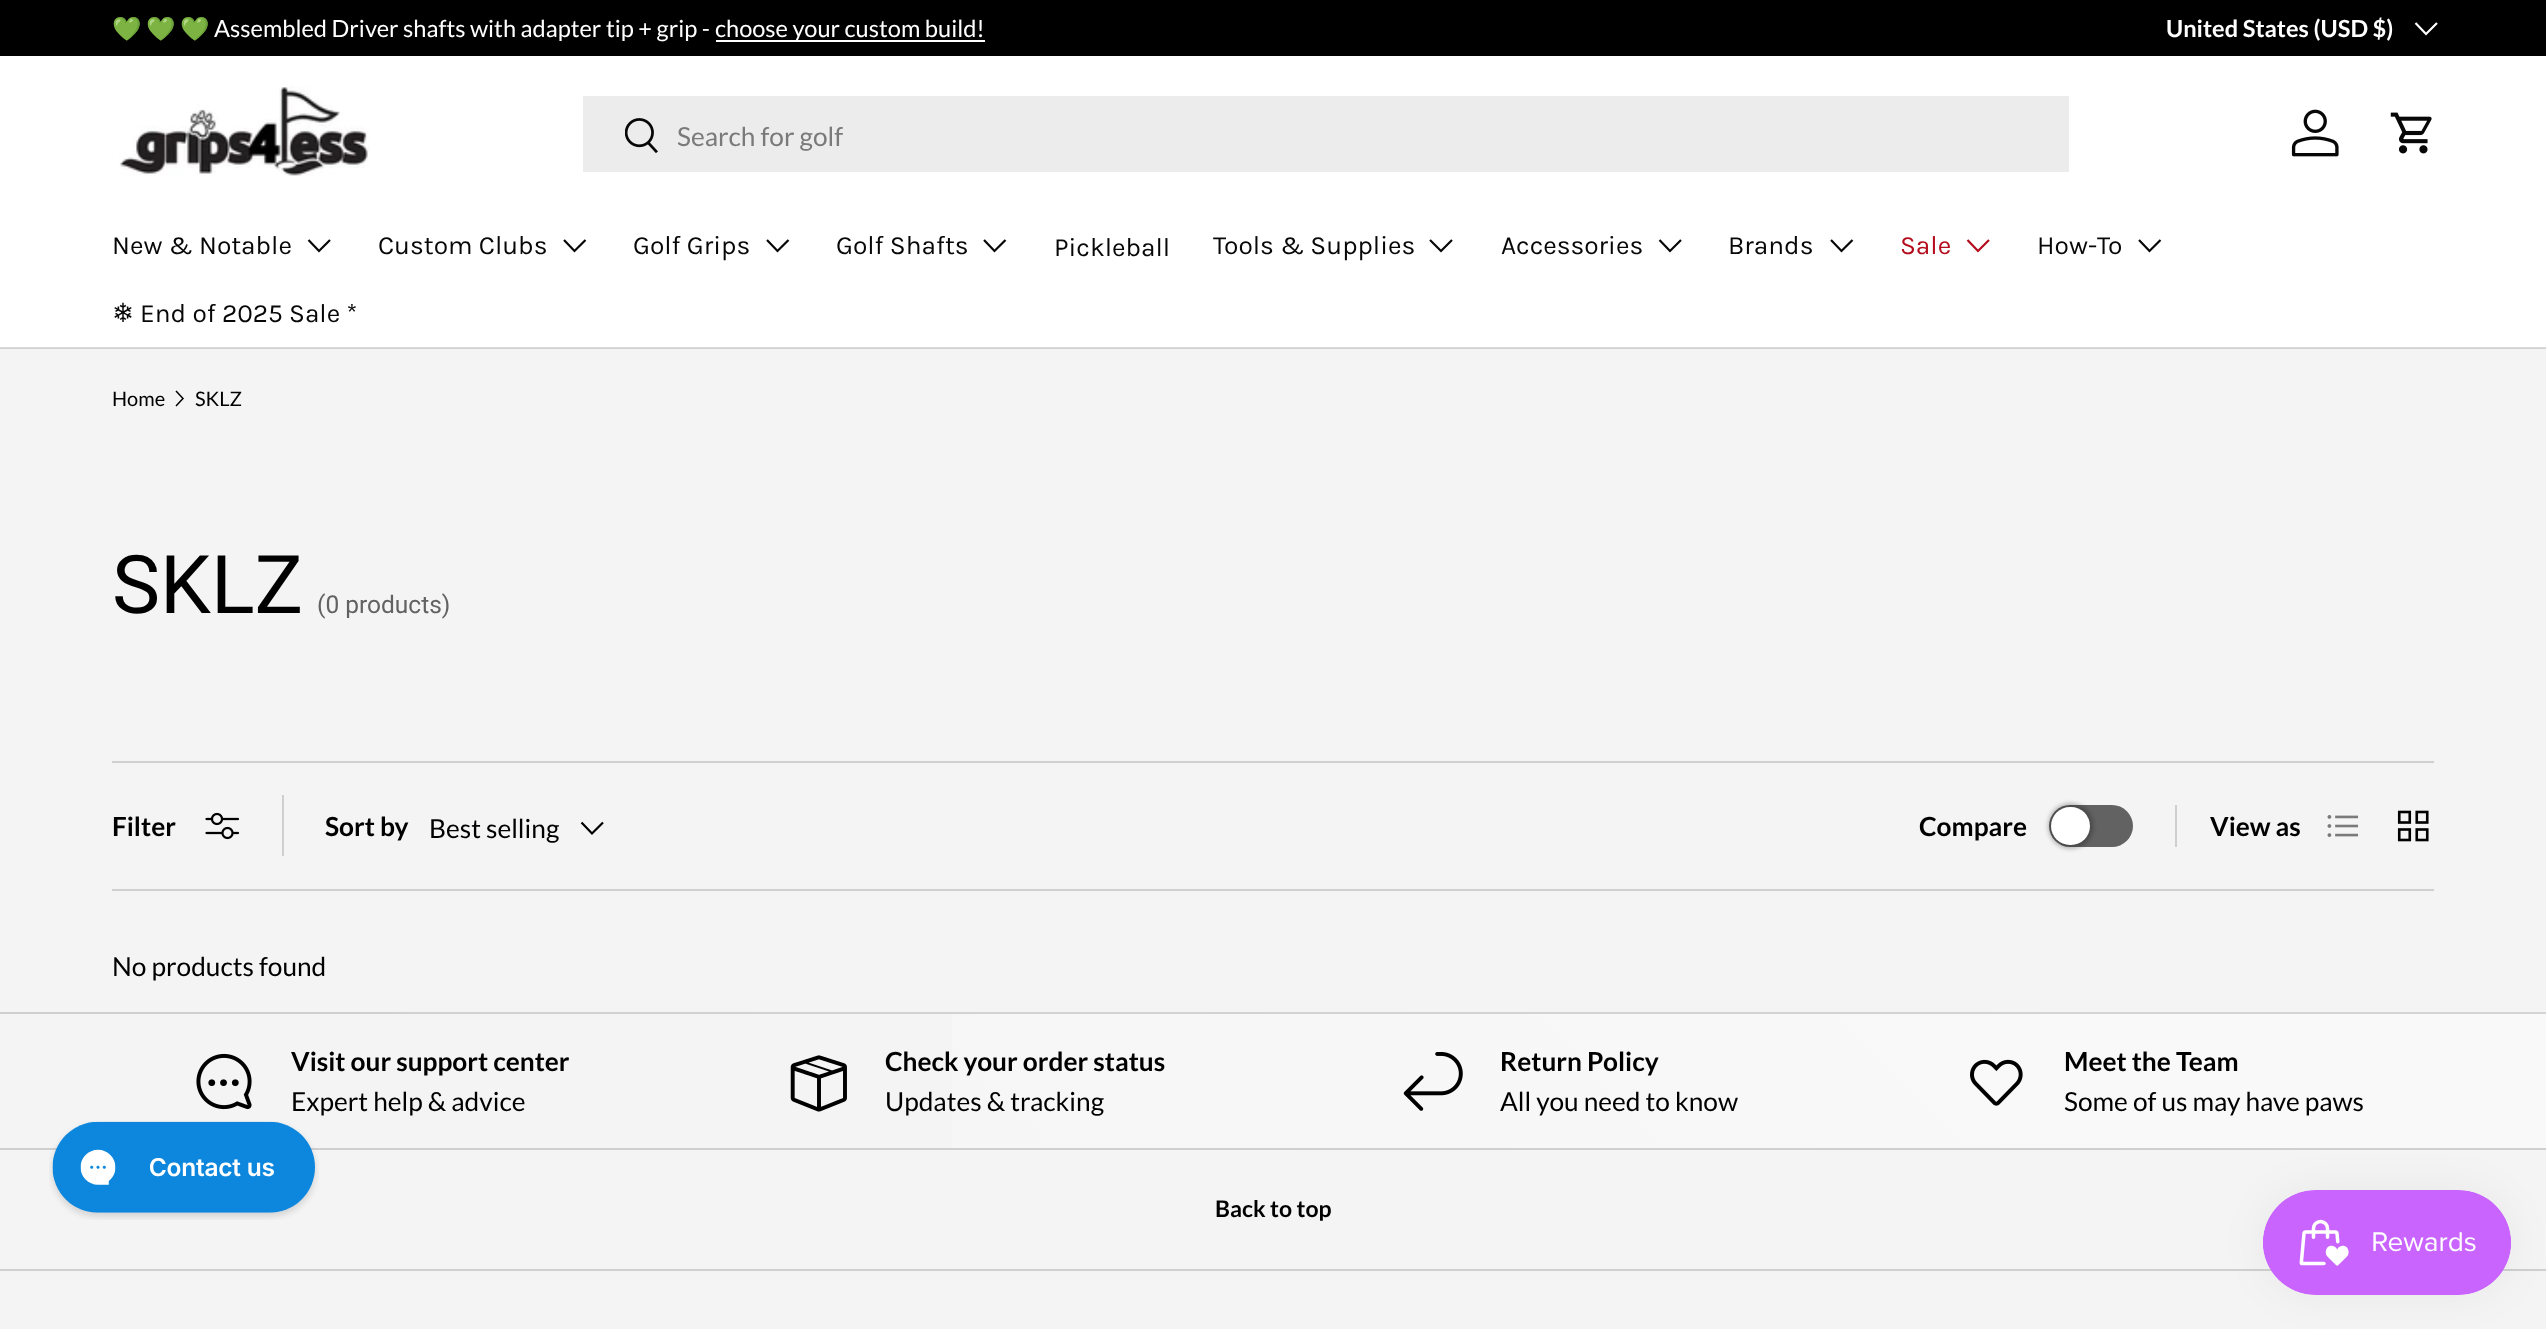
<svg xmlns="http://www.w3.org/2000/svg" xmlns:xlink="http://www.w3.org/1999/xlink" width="2546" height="1329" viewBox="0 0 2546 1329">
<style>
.cls-1{font:23.6px Noto Color Emoji;fill:#ffffff}
.cls-2{font:23.6px Lato;fill:#ffffff}
.cls-3{font:bold 23.6px Lato;fill:#ffffff}
.cls-4{font:26.25px Lato;fill:#7a7a7a}
.cls-5{font:26.25px Karla;fill:#070707}
.cls-6{font:26.25px Karla;fill:#b40c1c}
.cls-7{font:26.25px DejaVu Sans;fill:#070707}
.cls-8{font:20px Lato;fill:#000000}
.cls-9{font:81px Roboto;fill:#000000}
.cls-10{font:24.5px Roboto;fill:#626262}
.cls-11{font:bold 26.25px Lato;fill:#000000}
.cls-12{font:26.25px Lato;fill:#000000}
.cls-13{font:bold 23px Lato;fill:#000000}
</style>
<defs>
<linearGradient id="g1" gradientUnits="userSpaceOnUse" x1="581" y1="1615" x2="1966" y2="277"><stop offset="0.13" stop-color="#d0d0d0"/><stop offset="0.86" stop-color="#d4d4d4"/></linearGradient>
<linearGradient id="g2" gradientUnits="userSpaceOnUse" x1="581" y1="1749" x2="1966" y2="412"><stop offset="0.13" stop-color="#f5f5f5"/><stop offset="0.86" stop-color="#f9f9f9"/></linearGradient>
<linearGradient id="g3" gradientUnits="userSpaceOnUse" x1="581" y1="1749" x2="1966" y2="412"><stop offset="0.13" stop-color="#d0d0d0"/><stop offset="0.86" stop-color="#d4d4d4"/></linearGradient>
</defs>
<rect width="100%" height="100%" fill="#f4f4f4"/>
<rect fill="#d0d0d0" x="0" y="348" width="2546" height="1"/>
<rect fill="#000000" x="0" y="0" width="2546" height="56"/>
<rect fill="#ffffff" x="716" y="40" width="269" height="2"/>
<path fill="none" stroke="#ffffff" stroke-width="2.2" d="M2437 23L2426 34L2415.5 23"/>
<rect fill="#ffffff" x="0" y="56" width="2546" height="291"/>
<rect fill="#dadada" x="0" y="347" width="2546" height="1"/>
<image xlink:href="image0.png" x="119" y="86" width="251" height="90"/>
<rect fill="#ececec" x="583" y="96" width="1486" height="76"/>
<image xlink:href="image1.png" x="625" y="118" width="33" height="36"/>
<image xlink:href="image2.png" x="2291" y="109" width="48" height="48"/>
<image xlink:href="image3.png" x="2390" y="112" width="42" height="42"/>
<path fill="none" stroke="#070707" stroke-width="2.2" d="M330 240L319 251L308.5 240"/>
<path fill="none" stroke="#070707" stroke-width="2.2" d="M585.5 240L574.5 251L564 240"/>
<path fill="none" stroke="#070707" stroke-width="2.2" d="M788.5 240L777.5 251L767 240"/>
<path fill="none" stroke="#070707" stroke-width="2.2" d="M1005.5 240L994.5 251L984 240"/>
<path fill="none" stroke="#070707" stroke-width="2.2" d="M1452 240L1441 251L1430 240"/>
<path fill="none" stroke="#070707" stroke-width="2.2" d="M1681 240L1670 251L1659.5 240"/>
<path fill="none" stroke="#070707" stroke-width="2.2" d="M1852.5 240L1841.5 251L1831 240"/>
<path fill="none" stroke="#b40c1c" stroke-width="2.2" d="M1989 240L1978 251L1967.5 240"/>
<path fill="none" stroke="#070707" stroke-width="2.2" d="M2160.5 240L2149.5 251L2139 240"/>
<path fill="none" stroke="#000000" stroke-width="1.5" d="M176 391L183 398.5L176 406"/>
<rect fill="#cfcfcf" x="112" y="761" width="2322" height="2"/>
<rect fill="#cfcfcf" x="112" y="889" width="2322" height="2"/>
<image xlink:href="image4.png" x="205" y="812" width="35" height="28"/>
<rect fill="#cfcfcf" x="282" y="795" width="2" height="61"/>
<path fill="none" stroke="#000000" stroke-width="2.2" d="M603 822.5L592 833.5L581.5 822.5"/>
<rect fill="#626262" x="2049" y="805" width="84" height="42" rx="21"/>
<rect fill="#000000" fill-opacity="0.25" filter="blur(2px)" x="2048" y="803" width="45" height="46" rx="22.5"/>
<rect fill="#ffffff" x="2051" y="807" width="39" height="38" rx="19"/>
<rect fill="#cfcfcf" x="2175" y="805" width="2" height="42"/>
<image xlink:href="image5.png" x="2327" y="815" width="32" height="22"/>
<image xlink:href="image6.png" x="2397" y="810" width="32" height="32"/>
<rect fill="url(#g1)" x="0" y="1012" width="2546" height="1"/>
<rect fill="url(#g2)" x="952" y="1014" width="1594" height="134"/>
<rect fill="url(#g3)" x="0" y="1013" width="2546" height="1"/>
<image xlink:href="image7.png" x="196" y="1053" width="56" height="57"/>
<image xlink:href="image8.png" x="790" y="1055" width="57" height="57"/>
<image xlink:href="image9.png" x="1403" y="1052" width="60" height="59"/>
<image xlink:href="image10.png" x="1970" y="1059" width="53" height="47"/>
<rect fill="#cfcfcf" x="0" y="1148" width="2546" height="2"/>
<image xlink:href="image11.png" x="49" y="1121" width="270" height="99"/>
<rect fill="#cfcfcf" x="0" y="1269" width="2546" height="2"/>
<rect fill="#000000" fill-opacity="0.05" filter="blur(22px)" x="2263" y="1190" width="248" height="105" rx="52.5"/>
<image xlink:href="image12.png" x="2263" y="1190" width="248" height="105"/>
<text class="cls-1" x="112" y="37">💚</text>
<text class="cls-1" x="146" y="37">💚</text>
<text class="cls-1" x="180" y="37">💚</text>
<text class="cls-2" x="214" y="37">Assembled Driver shafts with adapter tip + grip -</text>
<text class="cls-2" x="715" y="37">choose your custom build!</text>
<text class="cls-3" x="2166" y="37">United States (USD $)</text>
<text class="cls-4" x="677" y="146">Search for golf</text>
<text class="cls-5" x="112" y="254">New &amp; Notable</text>
<text class="cls-5" x="378" y="254">Custom Clubs</text>
<text class="cls-5" x="633" y="254">Golf Grips</text>
<text class="cls-5" x="836" y="254">Golf Shafts</text>
<text class="cls-5" x="1054" y="256">Pickleball</text>
<text class="cls-5" x="1213" y="254">Tools &amp; Supplies</text>
<text class="cls-5" x="1501" y="254">Accessories</text>
<text class="cls-5" x="1728" y="254">Brands</text>
<text class="cls-6" x="1900" y="254">Sale</text>
<text class="cls-5" x="2037" y="254">How-To</text>
<text class="cls-7" x="112" y="322">❄</text>
<text class="cls-5" x="140" y="322">End of 2025 Sale *</text>
<text class="cls-8" x="112" y="406">Home</text>
<text class="cls-8" x="195" y="406">SKLZ</text>
<text class="cls-9" x="112" y="613">SKLZ</text>
<text class="cls-10" x="317" y="613">(0 products)</text>
<text class="cls-11" x="112" y="836">Filter</text>
<text class="cls-11" x="325" y="836">Sort by</text>
<text class="cls-12" x="429" y="838">Best selling</text>
<text class="cls-11" x="1919" y="836">Compare</text>
<text class="cls-11" x="2210" y="836">View as</text>
<text class="cls-12" x="112" y="976">No products found</text>
<text class="cls-11" x="291" y="1071">Visit our support center</text>
<text class="cls-12" x="291" y="1111">Expert help &amp; advice</text>
<text class="cls-11" x="885" y="1071">Check your order status</text>
<text class="cls-12" x="885" y="1111">Updates &amp; tracking</text>
<text class="cls-11" x="1500" y="1071">Return Policy</text>
<text class="cls-12" x="1500" y="1111">All you need to know</text>
<text class="cls-11" x="2064" y="1071">Meet the Team</text>
<text class="cls-12" x="2064" y="1111">Some of us may have paws</text>
<text class="cls-13" x="1215" y="1217">Back to top</text>
</svg>
